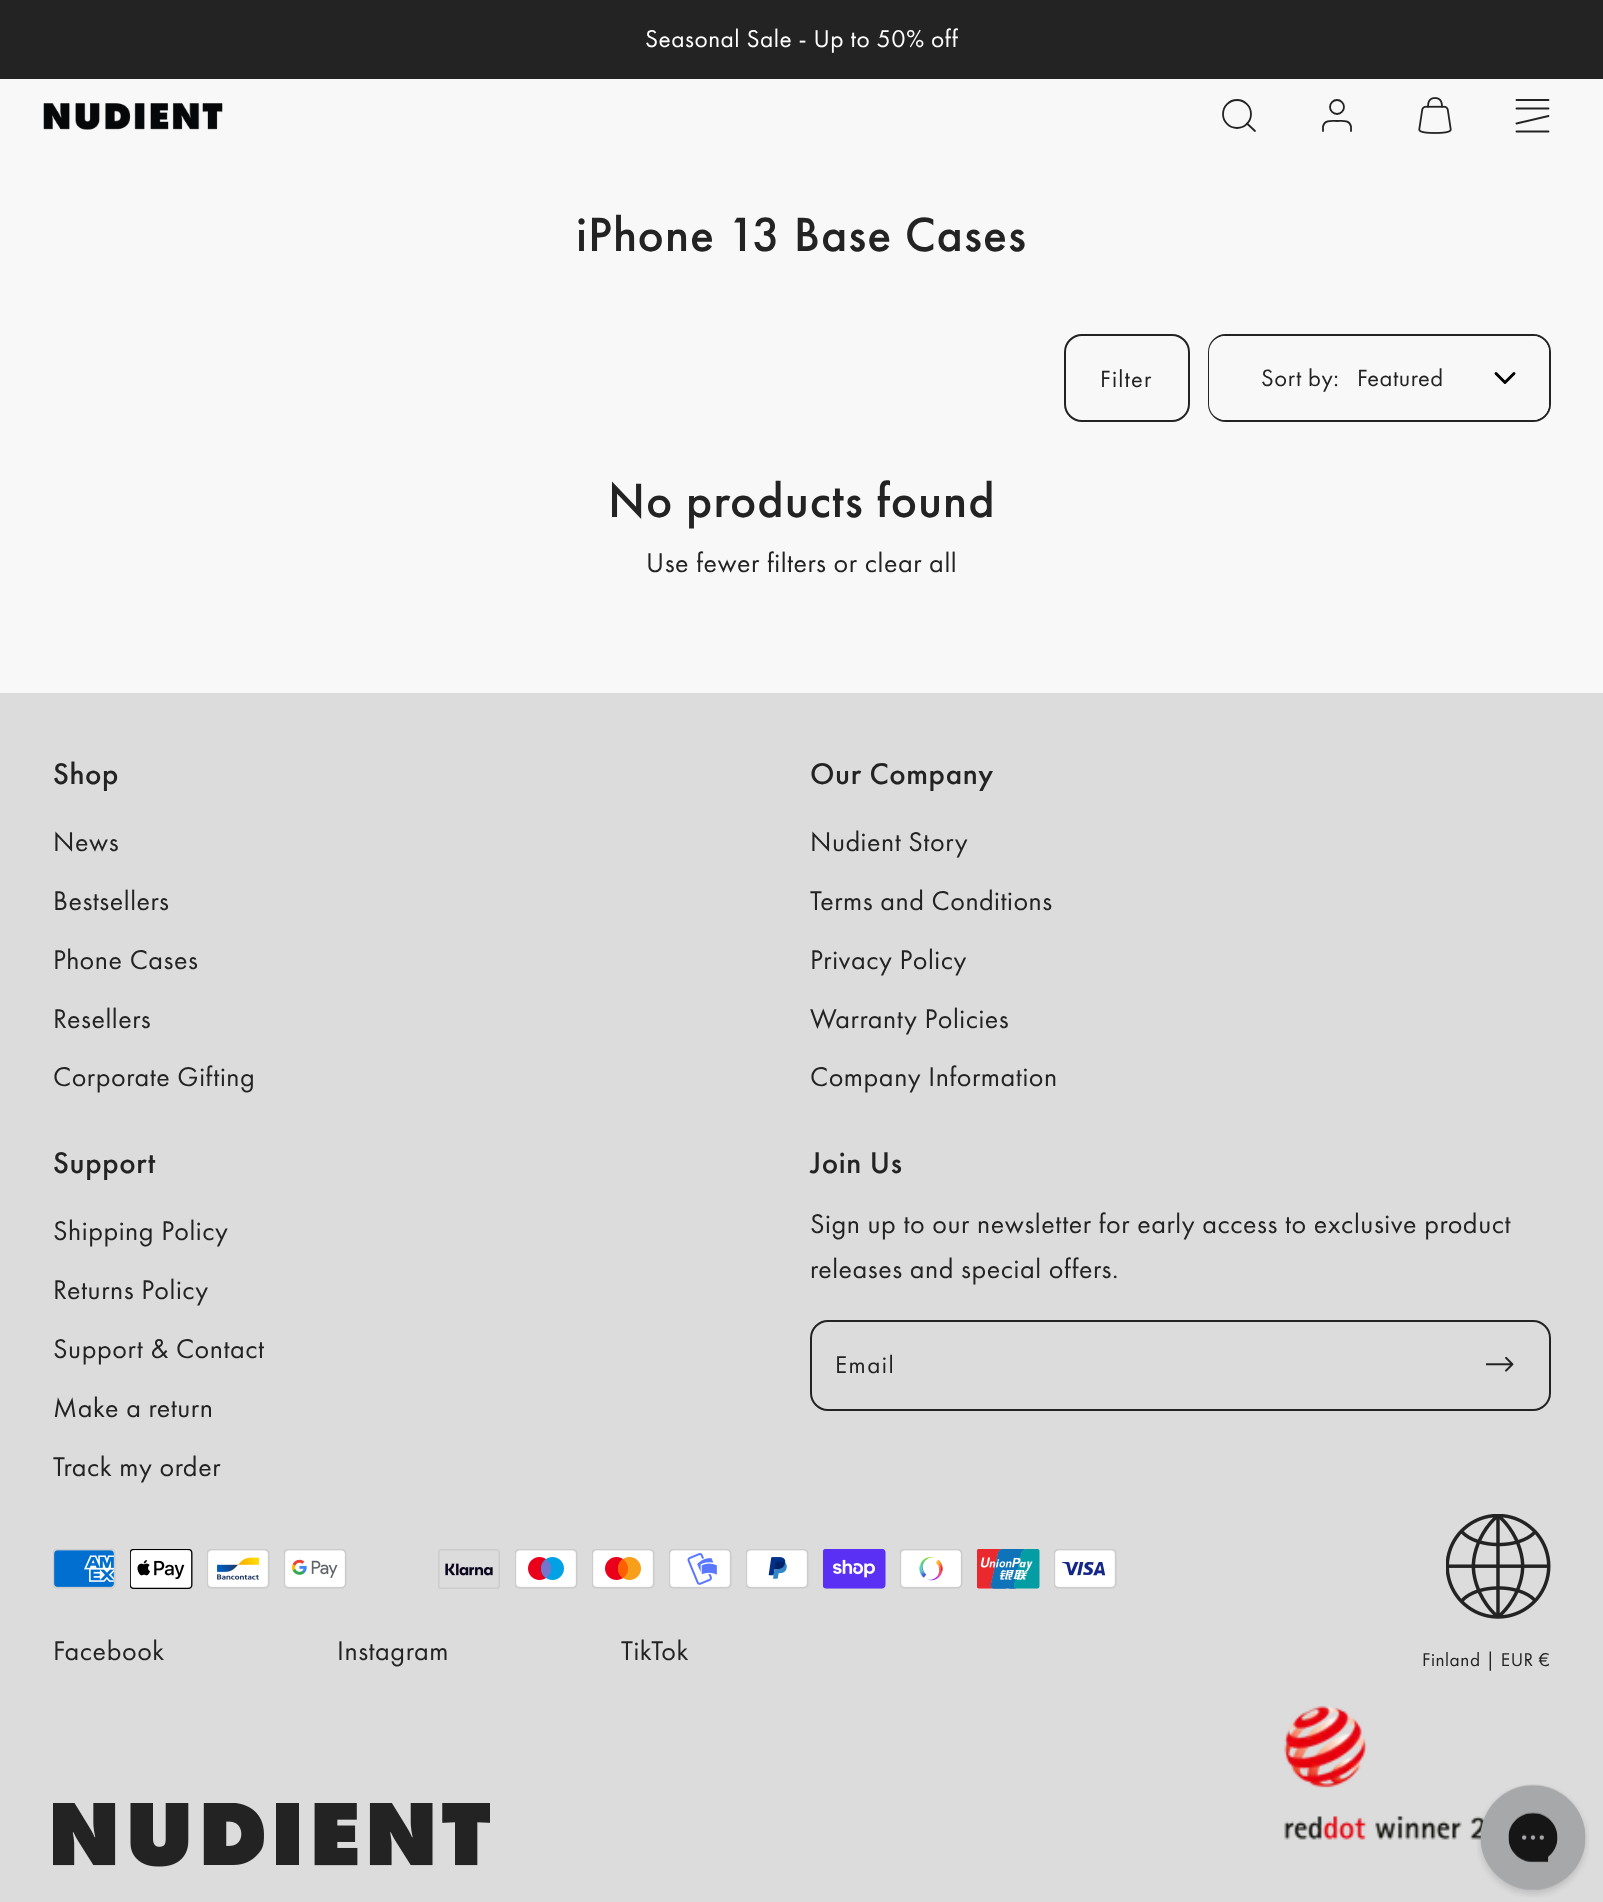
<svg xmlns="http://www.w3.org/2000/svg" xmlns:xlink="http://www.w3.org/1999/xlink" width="1603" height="1902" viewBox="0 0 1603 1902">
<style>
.cls-1{font:25.25px Futura PT;letter-spacing:0.5px;fill:#ffffff}
.cls-2{font:500 49.75px Futura PT;letter-spacing:1px;fill:#232323}
.cls-3{font:24.5px Futura PT;letter-spacing:1.25px;fill:#232323}
.cls-4{font:24.5px Futura PT;letter-spacing:0.55px;fill:#232323}
.cls-5{font:28px Futura PT;letter-spacing:0.55px;fill:#232323}
.cls-6{font:500 31px Futura PT;letter-spacing:0.6px;fill:#232323}
.cls-7{font:25px Futura PT;letter-spacing:1.5px;fill:#232323}
.cls-8{font:19.25px Futura PT;letter-spacing:0.55px;fill:#232323}
</style>
<rect width="100%" height="100%" fill="#f8f8f8"/>
<rect fill="#232323" x="0" y="0" width="1603" height="79"/>
<image xlink:href="image0.png" x="43" y="103" width="180" height="27"/>
<circle fill="none" stroke="#232323" stroke-width="1.8" cx="1237" cy="114" r="14"/>
<path fill="none" stroke="#232323" stroke-width="1.8" stroke-linecap="round" stroke-linejoin="round" d="M1255 131L1247 123.5"/>
<path fill="none" stroke="#232323" stroke-width="1.8" stroke-linecap="round" stroke-linejoin="round" d="M1351 131V126.5C1349.5 119.5 1342 121 1337 121C1332 121 1324.5 119.5 1323 126.5V131"/>
<circle fill="none" stroke="#232323" stroke-width="1.8" cx="1337" cy="107" r="7"/>
<image xlink:href="image1.png" x="1418" y="97" width="34" height="37"/>
<path fill="none" stroke="#232323" stroke-width="1.8" stroke-linecap="round" stroke-linejoin="round" d="M1516.5 100H1548.5M1516.5 131.5H1548.5M1516.5 108.5H1548.5M1516.5 123.5L1548.5 116"/>
<rect fill="none" stroke="#232323" stroke-width="2" x="1065" y="335" width="124" height="86" rx="17"/>
<rect fill="none" stroke="#232323" stroke-width="2" x="1209" y="335" width="341" height="86" rx="17"/>
<rect fill="#f8f8f8" x="1209" y="336" width="340" height="84" rx="16"/>
<path fill="none" stroke="#000000" stroke-width="2.9" stroke-linecap="round" stroke-linejoin="round" d="M1496 373.5L1505 382.5L1514 373.5"/>
<rect fill="#dcdcdc" x="0" y="693" width="1603" height="1209"/>
<rect fill="none" stroke="#232323" stroke-width="2" x="811" y="1321" width="739" height="89" rx="17"/>
<image xlink:href="image2.png" x="1486" y="1356" width="28" height="16"/>
<image xlink:href="image3.png" x="53" y="1549" width="63" height="40"/>
<image xlink:href="image4.png" x="130" y="1549" width="63" height="40"/>
<image xlink:href="image5.png" x="207" y="1549" width="63" height="40"/>
<image xlink:href="image6.png" x="284" y="1549" width="63" height="40"/>
<image xlink:href="image7.png" x="438" y="1549" width="62" height="40"/>
<image xlink:href="image8.png" x="515" y="1549" width="63" height="40"/>
<image xlink:href="image9.png" x="592" y="1549" width="63" height="40"/>
<image xlink:href="image10.png" x="669" y="1549" width="63" height="40"/>
<image xlink:href="image11.png" x="746" y="1549" width="63" height="40"/>
<image xlink:href="image12.png" x="823" y="1549" width="63" height="40"/>
<image xlink:href="image13.png" x="900" y="1549" width="63" height="40"/>
<image xlink:href="image14.png" x="977" y="1549" width="63" height="40"/>
<image xlink:href="image15.png" x="1054" y="1549" width="63" height="40"/>
<image xlink:href="image16.png" x="1446" y="1514" width="105" height="105"/>
<image xlink:href="image17.png" x="53" y="1803" width="437" height="64"/>
<image xlink:href="image18.png" x="1284" y="1705" width="200" height="135"/>
<image xlink:href="image19.png" x="1477" y="1784" width="112" height="113"/>
<text class="cls-1" x="645" y="47">Seasonal Sale - Up to 50% off</text>
<text class="cls-2" x="576" y="251">iPhone 13 Base Cases</text>
<text class="cls-3" x="1100" y="387">Filter</text>
<text class="cls-4" x="1261" y="386">Sort by:</text>
<text class="cls-4" x="1357" y="386">Featured</text>
<text class="cls-2" x="608" y="517">No products found</text>
<text class="cls-5" x="646" y="572">Use fewer filters or clear all</text>
<text class="cls-6" x="53" y="784">Shop</text>
<text class="cls-5" x="53" y="851">News</text>
<text class="cls-5" x="53" y="910">Bestsellers</text>
<text class="cls-5" x="53" y="969">Phone Cases</text>
<text class="cls-5" x="53" y="1028">Resellers</text>
<text class="cls-5" x="53" y="1086">Corporate Gifting</text>
<text class="cls-6" x="810" y="784">Our Company</text>
<text class="cls-5" x="810" y="851">Nudient Story</text>
<text class="cls-5" x="810" y="910">Terms and Conditions</text>
<text class="cls-5" x="810" y="969">Privacy Policy</text>
<text class="cls-5" x="810" y="1028">Warranty Policies</text>
<text class="cls-5" x="810" y="1086">Company Information</text>
<text class="cls-6" x="53" y="1173">Support</text>
<text class="cls-5" x="53" y="1240">Shipping Policy</text>
<text class="cls-5" x="53" y="1299">Returns Policy</text>
<text class="cls-5" x="53" y="1358">Support &amp; Contact</text>
<text class="cls-5" x="53" y="1417">Make a return</text>
<text class="cls-5" x="53" y="1476">Track my order</text>
<text class="cls-6" x="810" y="1173">Join Us</text>
<text class="cls-5"><tspan x="810" y="1233">Sign up to our newsletter for early access to exclusive product</tspan><tspan x="810" y="1278">releases and special offers.</tspan></text>
<text class="cls-7" x="835" y="1373">Email</text>
<text class="cls-5" x="53" y="1660">Facebook</text>
<text class="cls-5" x="337" y="1660">Instagram</text>
<text class="cls-5" x="621" y="1660">TikTok</text>
<text class="cls-8" x="1422" y="1666">Finland | EUR €</text>
</svg>
